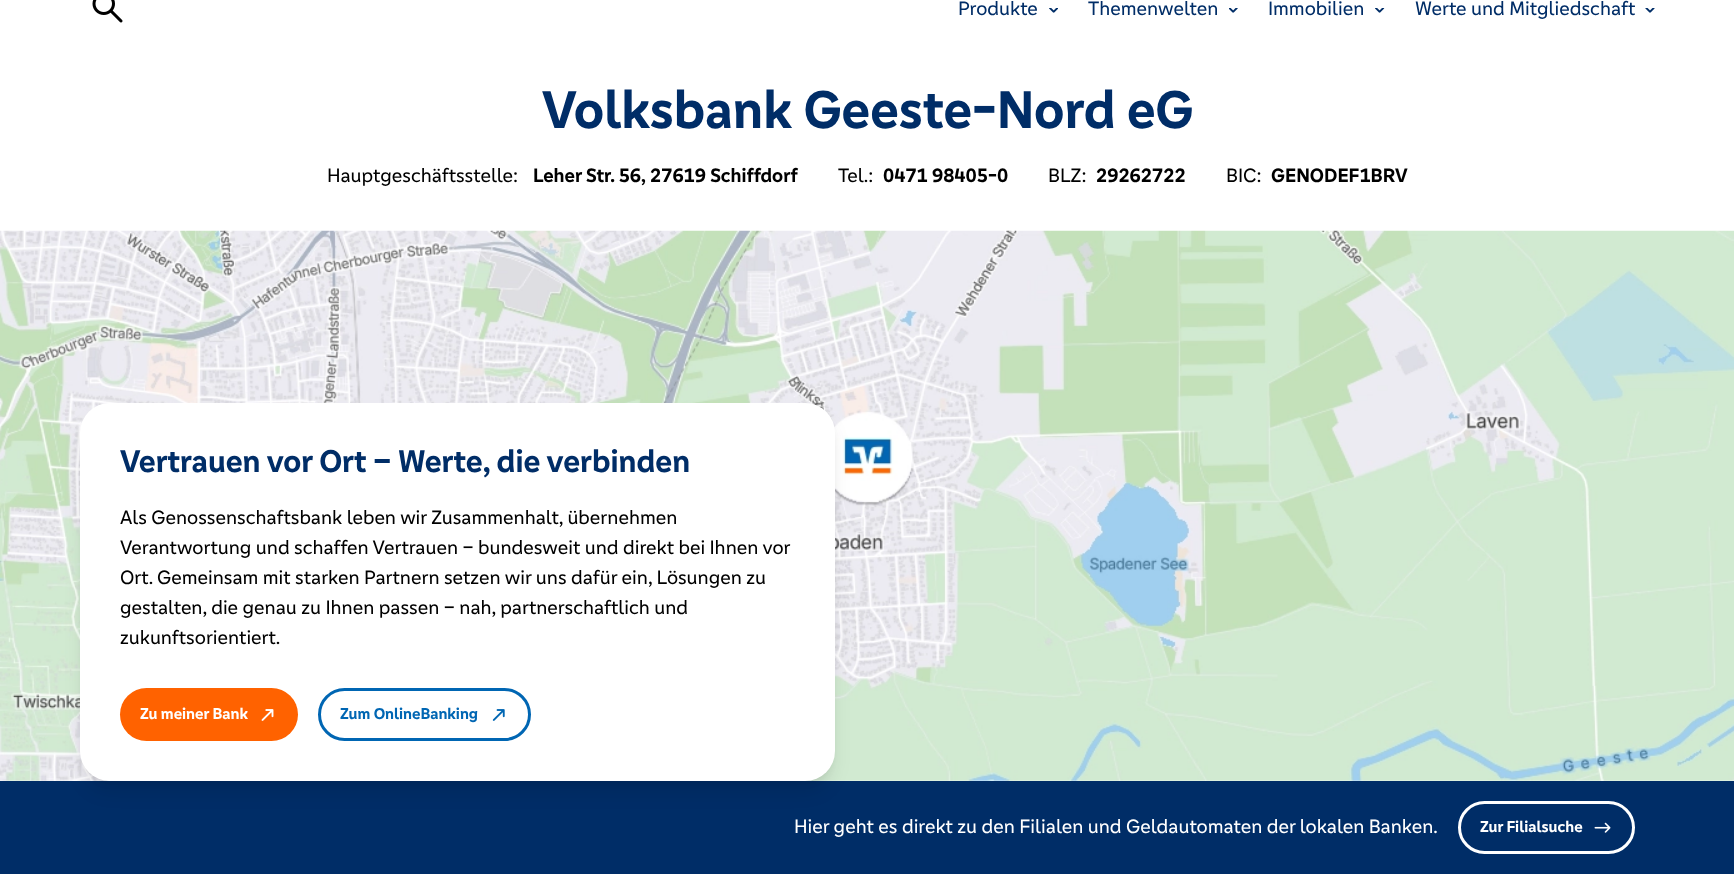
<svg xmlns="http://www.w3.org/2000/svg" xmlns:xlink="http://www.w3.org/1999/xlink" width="1734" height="887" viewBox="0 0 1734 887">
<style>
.cls-1{font:20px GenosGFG;fill:#002d67}
.cls-2{font:bold 55px GenosGFG;fill:#002d67}
.cls-3{font:20px GenosGFG;fill:#000000}
.cls-4{font:bold 20px GenosGFG;fill:#000000}
.cls-5{font:bold 32.5px GenosGFG;fill:#002d67}
.cls-6{font:bold 16.25px GenosGFG;fill:#ffffff}
.cls-7{font:bold 16.25px GenosGFG;fill:#0066b3}
.cls-8{font:20px GenosGFG;fill:#ffffff}
</style>
<rect width="100%" height="100%" fill="#ffffff"/>
<image xlink:href="image0.png" x="92" y="0" width="31" height="23"/>
<image xlink:href="image1.png" x="1049" y="8" width="9" height="5"/>
<image xlink:href="image2.png" x="1229" y="8" width="9" height="5"/>
<image xlink:href="image3.png" x="1375" y="8" width="10" height="5"/>
<image xlink:href="image4.png" x="1645" y="8" width="10" height="5"/>
<image xlink:href="image5.png" x="0" y="230" width="1734" height="551"/>
<rect fill="#002d67" x="0" y="781" width="1734" height="93"/>
<rect fill="#000000" fill-opacity="0.1" filter="blur(4px)" x="85" y="413" width="745" height="368" rx="25"/>
<rect fill="#000000" fill-opacity="0.1" filter="blur(9.5px)" x="84" y="419" width="747" height="371" rx="26"/>
<rect fill="#ffffff" x="80" y="403" width="755" height="378" rx="30"/>
<rect fill="#ff6200" x="120" y="688" width="178" height="53" rx="26.5"/>
<image xlink:href="image6.png" x="261" y="709" width="13" height="12"/>
<rect fill="none" stroke="#0066b3" stroke-width="3" x="319.5" y="689.5" width="210" height="50" rx="25"/>
<image xlink:href="image7.png" x="492" y="709" width="13" height="12"/>
<rect fill="none" stroke="#ffffff" stroke-width="3" x="1459.5" y="802.5" width="174" height="50" rx="25"/>
<image xlink:href="image8.png" x="1594" y="822" width="17" height="11"/>
<text class="cls-1" x="958" y="15">Produkte</text>
<text class="cls-1" x="1088" y="15">Themenwelten</text>
<text class="cls-1" x="1268" y="15">Immobilien</text>
<text class="cls-1" x="1415" y="15">Werte und Mitgliedschaft</text>
<text class="cls-2" x="542" y="128">Volksbank Geeste-Nord eG</text>
<text class="cls-3" x="327" y="182">Hauptgeschäftsstelle:</text>
<text class="cls-4" x="533" y="182">Leher Str. 56,</text>
<text class="cls-4" x="650" y="182">27619 Schiffdorf</text>
<text class="cls-3" x="838" y="182">Tel.:</text>
<text class="cls-4" x="883" y="182">0471 98405-0</text>
<text class="cls-3" x="1048" y="182">BLZ:</text>
<text class="cls-4" x="1096" y="182">29262722</text>
<text class="cls-3" x="1226" y="182">BIC:</text>
<text class="cls-4" x="1271" y="182">GENODEF1BRV</text>
<text class="cls-5" x="120" y="472">Vertrauen vor Ort – Werte, die verbinden</text>
<text class="cls-3"><tspan x="120" y="524">Als Genossenschaftsbank leben wir Zusammenhalt, übernehmen</tspan><tspan x="120" y="554">Verantwortung und schaffen Vertrauen – bundesweit und direkt bei Ihnen vor</tspan><tspan x="120" y="584">Ort. Gemeinsam mit starken Partnern setzen wir uns dafür ein, Lösungen zu</tspan><tspan x="120" y="614">gestalten, die genau zu Ihnen passen – nah, partnerschaftlich und</tspan><tspan x="120" y="644">zukunftsorientiert.</tspan></text>
<text class="cls-6" x="140" y="719">Zu meiner Bank</text>
<text class="cls-7" x="340" y="719">Zum OnlineBanking</text>
<text class="cls-8" x="794" y="833">Hier geht es direkt zu den Filialen und Geldautomaten der lokalen Banken.</text>
<text class="cls-6" x="1480" y="832">Zur Filialsuche</text>
</svg>
